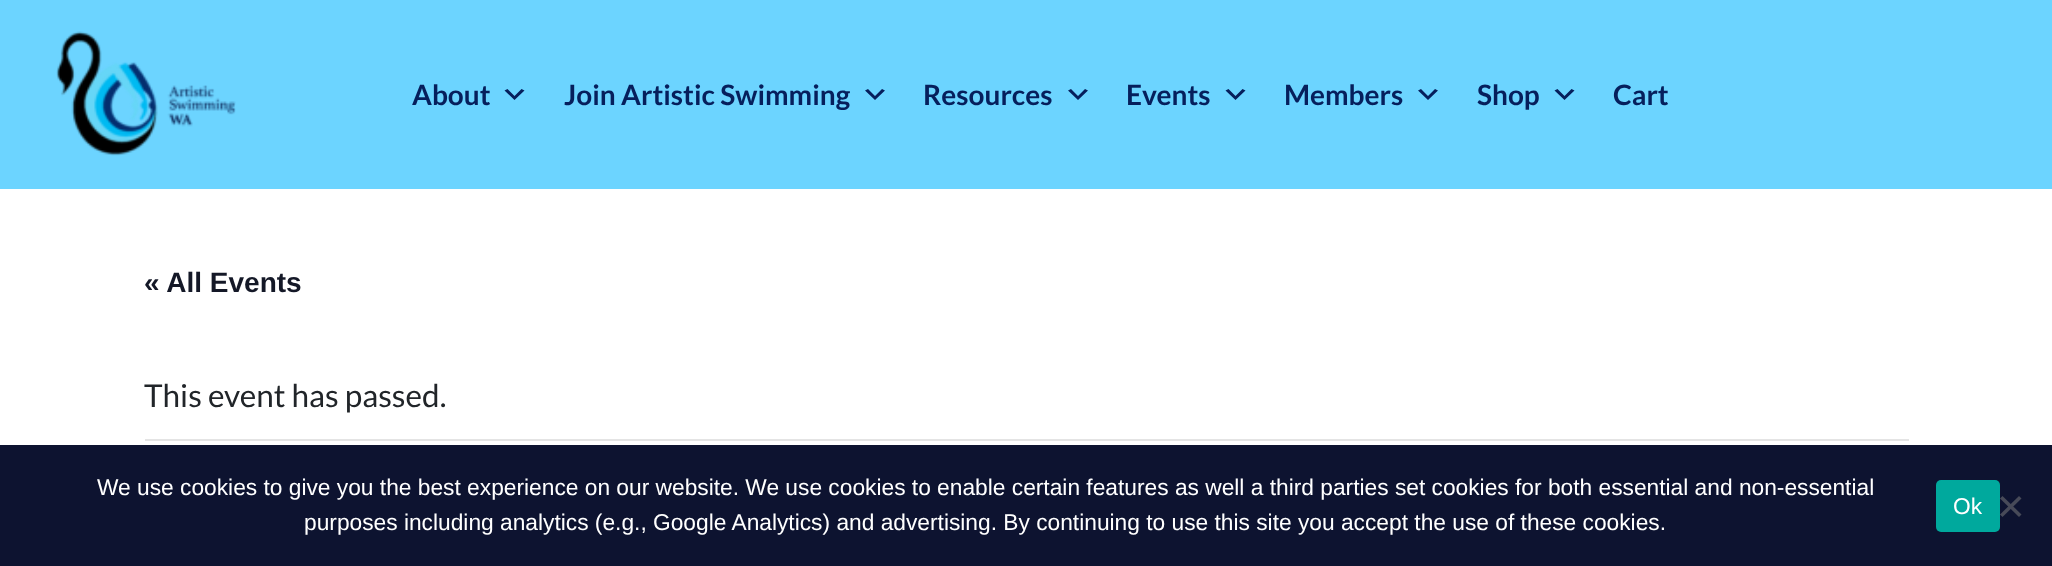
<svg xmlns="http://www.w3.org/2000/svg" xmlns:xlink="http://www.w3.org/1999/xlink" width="2052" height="566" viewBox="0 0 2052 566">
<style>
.cls-1{font:bold 28px Lato;fill:#061f5c}
.cls-2{font:bold 28px Liberation Sans;fill:#141827}
.cls-3{font:31.5px Lato;fill:#212529}
.cls-4{font:22.75px Liberation Sans;fill:#ffffff}
</style>
<rect width="100%" height="100%" fill="#ffffff"/>
<rect fill="#6cd4ff" x="0" y="0" width="2052" height="189"/>
<image xlink:href="image0.png" x="56" y="31" width="180" height="125"/>
<path fill="#061f5c" d="M507.5 89L514.5 96L521.5 89L524.5 90.5L514.5 100L504.5 90.5Z"/>
<path fill="#061f5c" d="M868 89L875 96L882 89L885 90.5L875 100L865 90.5Z"/>
<path fill="#061f5c" d="M1071 89L1078 96L1085 89L1088 90.5L1078 100L1068 90.5Z"/>
<path fill="#061f5c" d="M1228.5 89L1235.5 96L1242.5 89L1245.5 90.5L1235.5 100L1225.5 90.5Z"/>
<path fill="#061f5c" d="M1421 89L1428 96L1435 89L1438 90.5L1428 100L1418 90.5Z"/>
<path fill="#061f5c" d="M1557.5 89L1564.5 96L1571.5 89L1574.5 90.5L1564.5 100L1554.5 90.5Z"/>
<rect fill="#e4e4e4" x="145" y="439" width="1764" height="2"/>
<rect fill="#0d1330" x="0" y="445" width="2052" height="121"/>
<rect fill="#00a99d" x="1936" y="480" width="64" height="52" rx="5"/>
<path fill="#474a58" d="M2019 496L2021.5 498.5L2002.5 517L2000 514.5Z"/>
<path fill="#474a58" d="M2000 498.5L2002.5 496L2021.5 514.5L2019 517Z"/>
<text class="cls-1" x="412" y="105">About</text>
<text class="cls-1" x="564" y="105">Join Artistic Swimming</text>
<text class="cls-1" x="923" y="105">Resources</text>
<text class="cls-1" x="1126" y="105">Events</text>
<text class="cls-1" x="1284" y="105">Members</text>
<text class="cls-1" x="1477" y="105">Shop</text>
<text class="cls-1" x="1613" y="105">Cart</text>
<text class="cls-2" x="144" y="292">« All Events</text>
<text class="cls-3" x="144" y="407">This event has passed.</text>
<text class="cls-4" x="97" y="495">We use cookies to give you the best experience on our website. We use cookies to enable certain features as well a third parties set cookies for both essential and non-essential</text>
<text class="cls-4" x="304" y="530">purposes including analytics (e.g., Google Analytics) and advertising. By continuing to use this site you accept the use of these cookies.</text>
<text class="cls-4" x="1953" y="514">Ok</text>
</svg>
